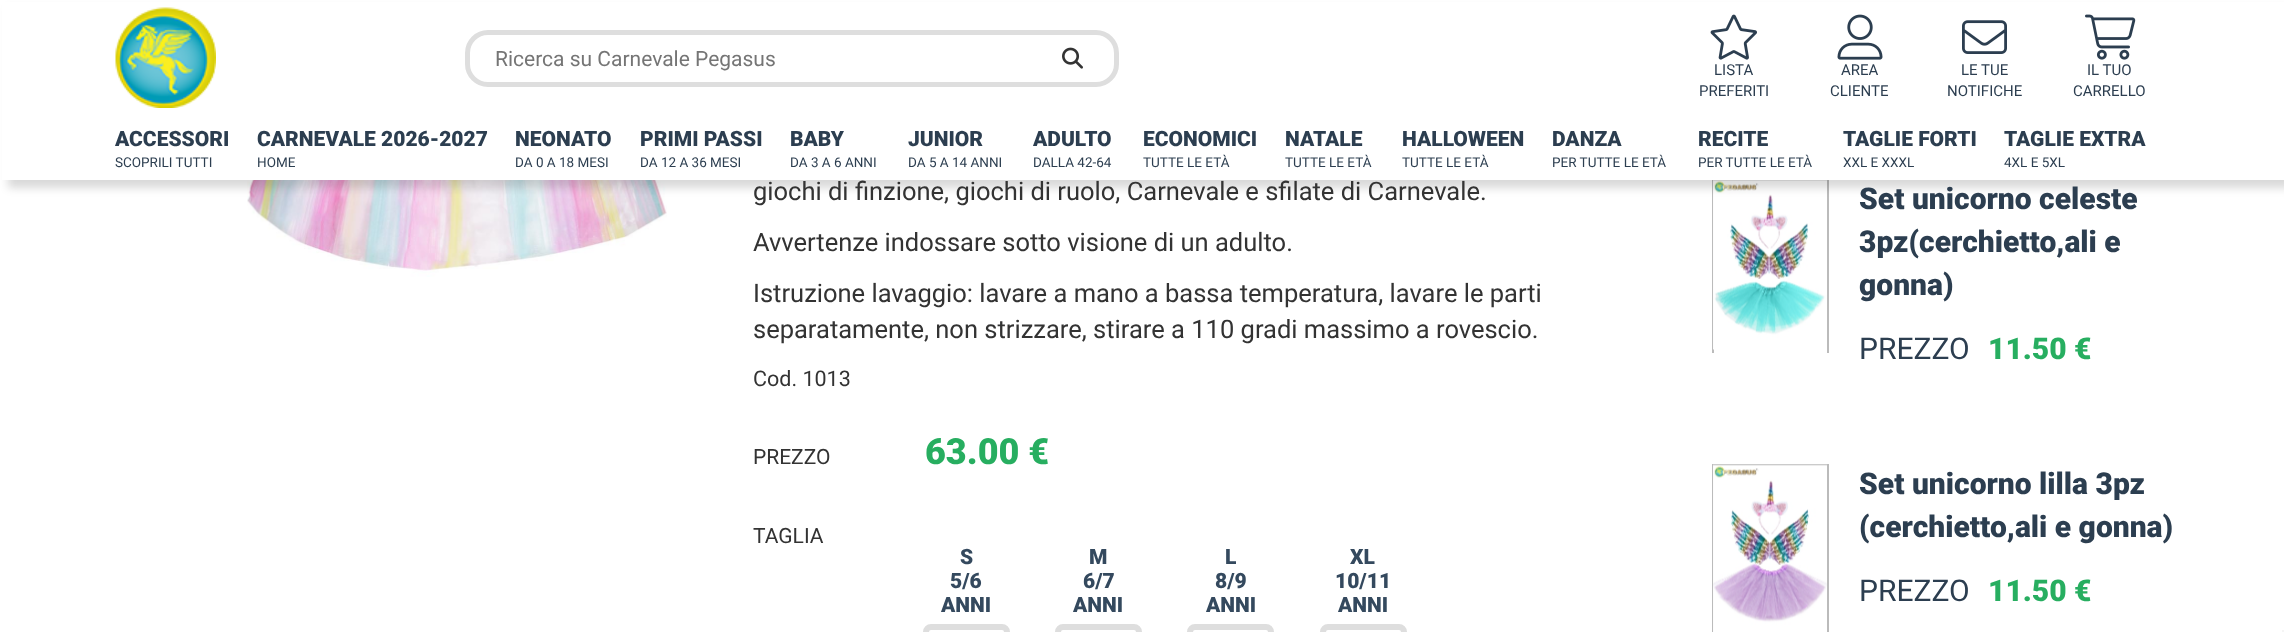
<svg xmlns="http://www.w3.org/2000/svg" xmlns:xlink="http://www.w3.org/1999/xlink" width="2284" height="632" viewBox="0 0 2284 632">
<style>
.cls-1{font:21px Roboto;fill:#757575}
.cls-2{font:15px Roboto;fill:#2c3e50}
.cls-3{font:900 21px Roboto;fill:#2c3e50}
.cls-4{font:13.5px Roboto;fill:#2c3e50}
.cls-5{font:25.5px Roboto;fill:#333333}
.cls-6{font:21.5px Roboto;fill:#333333}
.cls-7{font:21px Roboto;fill:#333333}
.cls-8{font:900 36px Roboto;fill:#27ae60}
.cls-9{font:900 21px Roboto;fill:#34495e}
.cls-10{font:900 30px Roboto;fill:#2c3e50}
.cls-11{font:30px Roboto;fill:#2c3e50}
.cls-12{font:900 30px Roboto;fill:#27ae60}
</style>
<defs>
<clipPath id="clip1"><rect x="1704" y="179" width="132" height="174"/></clipPath>
</defs>
<rect width="100%" height="100%" fill="#ffffff"/>
<image xlink:href="image6.png" x="247" y="180" width="420" height="97"/>
<g clip-path="url(#clip1)">
<rect fill="none" stroke="#bbbbbb" stroke-width="2" x="1713" y="180" width="115" height="223"/>
</g>
<image xlink:href="image7.png" x="1713" y="180" width="114" height="170"/>
<rect fill="#000000" fill-opacity="0.15" filter="blur(4px)" x="8" y="8" width="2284" height="180"/>
<rect fill="#ffffff" x="2" y="2" width="2282" height="178"/>
<image xlink:href="image0.png" x="115" y="7" width="101" height="101"/>
<rect fill="none" stroke="#dedede" stroke-width="5" x="467.5" y="32.5" width="649" height="52" rx="20.5"/>
<image xlink:href="image1.png" x="1062" y="47" width="21" height="22"/>
<image xlink:href="image2.png" x="1710" y="14" width="47" height="46"/>
<image xlink:href="image3.png" x="1837" y="14" width="46" height="46"/>
<image xlink:href="image4.png" x="1962" y="20" width="45" height="34"/>
<image xlink:href="image5.png" x="2085" y="14" width="51" height="46"/>
<rect fill="none" stroke="#dedede" stroke-width="6" x="926" y="627" width="81" height="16" rx="5"/>
<rect fill="none" stroke="#dedede" stroke-width="6" x="1058" y="627" width="81" height="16" rx="5"/>
<rect fill="none" stroke="#dedede" stroke-width="6" x="1190" y="627" width="81" height="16" rx="5"/>
<rect fill="none" stroke="#dedede" stroke-width="6" x="1323" y="627" width="81" height="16" rx="5"/>
<rect fill="none" stroke="#bbbbbb" stroke-width="2" x="1713" y="465" width="115" height="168"/>
<image xlink:href="image8.png" x="1713" y="464" width="114" height="168"/>
<rect fill="#f5f5f5" x="2282" y="630" width="2" height="2"/>
<text class="cls-1" x="495" y="66">Ricerca su Carnevale Pegasus</text>
<text class="cls-2" x="1714" y="75">LISTA</text>
<text class="cls-2" x="1699" y="96">PREFERITI</text>
<text class="cls-2" x="1841" y="75">AREA</text>
<text class="cls-2" x="1830" y="96">CLIENTE</text>
<text class="cls-2" x="1961" y="75">LE TUE</text>
<text class="cls-2" x="1947" y="96">NOTIFICHE</text>
<text class="cls-2" x="2087" y="75">IL TUO</text>
<text class="cls-2" x="2073" y="96">CARRELLO</text>
<text class="cls-3" x="115" y="146">ACCESSORI</text>
<text class="cls-4" x="115" y="167">SCOPRILI TUTTI</text>
<text class="cls-3" x="257" y="146">CARNEVALE 2026-2027</text>
<text class="cls-4" x="257" y="167">HOME</text>
<text class="cls-3" x="515" y="146">NEONATO</text>
<text class="cls-4" x="515" y="167">DA 0 A 18 MESI</text>
<text class="cls-3" x="640" y="146">PRIMI PASSI</text>
<text class="cls-4" x="640" y="167">DA 12 A 36 MESI</text>
<text class="cls-3" x="790" y="146">BABY</text>
<text class="cls-4" x="790" y="167">DA 3 A 6 ANNI</text>
<text class="cls-3" x="908" y="146">JUNIOR</text>
<text class="cls-4" x="908" y="167">DA 5 A 14 ANNI</text>
<text class="cls-3" x="1033" y="146">ADULTO</text>
<text class="cls-4" x="1033" y="167">DALLA 42-64</text>
<text class="cls-3" x="1143" y="146">ECONOMICI</text>
<text class="cls-4" x="1143" y="167">TUTTE LE ETÀ</text>
<text class="cls-3" x="1285" y="146">NATALE</text>
<text class="cls-4" x="1285" y="167">TUTTE LE ETÀ</text>
<text class="cls-3" x="1402" y="146">HALLOWEEN</text>
<text class="cls-4" x="1402" y="167">TUTTE LE ETÀ</text>
<text class="cls-3" x="1552" y="146">DANZA</text>
<text class="cls-4" x="1552" y="167">PER TUTTE LE ETÀ</text>
<text class="cls-3" x="1698" y="146">RECITE</text>
<text class="cls-4" x="1698" y="167">PER TUTTE LE ETÀ</text>
<text class="cls-3" x="1843" y="146">TAGLIE FORTI</text>
<text class="cls-4" x="1843" y="167">XXL E XXXL</text>
<text class="cls-3" x="2004" y="146">TAGLIE EXTRA</text>
<text class="cls-4" x="2004" y="167">4XL E 5XL</text>
<text class="cls-5" x="753" y="200">giochi di finzione, giochi di ruolo, Carnevale e sfilate di Carnevale.</text>
<text class="cls-5" x="753" y="251">Avvertenze indossare sotto visione di un adulto.</text>
<text class="cls-5"><tspan x="753" y="302">Istruzione lavaggio: lavare a mano a bassa temperatura, lavare le parti</tspan><tspan x="753" y="338">separatamente, non strizzare, stirare a 110 gradi massimo a rovescio.</tspan></text>
<text class="cls-6" x="753" y="386">Cod. 1013</text>
<text class="cls-7" x="753" y="464">PREZZO</text>
<text class="cls-8" x="925" y="464">63.00 €</text>
<text class="cls-7" x="753" y="543">TAGLIA</text>
<text class="cls-9" x="960" y="564">S</text>
<text class="cls-9" x="950" y="588">5/6</text>
<text class="cls-9" x="941" y="612">ANNI</text>
<text class="cls-9" x="1089" y="564">M</text>
<text class="cls-9" x="1083" y="588">6/7</text>
<text class="cls-9" x="1073" y="612">ANNI</text>
<text class="cls-9" x="1225" y="564">L</text>
<text class="cls-9" x="1215" y="588">8/9</text>
<text class="cls-9" x="1206" y="612">ANNI</text>
<text class="cls-9" x="1350" y="564">XL</text>
<text class="cls-9" x="1335" y="588">10/11</text>
<text class="cls-9" x="1338" y="612">ANNI</text>
<text class="cls-10"><tspan x="1859" y="209">Set unicorno celeste</tspan><tspan x="1859" y="252">3pz(cerchietto,ali e</tspan><tspan x="1859" y="295">gonna)</tspan></text>
<text class="cls-11" x="1859" y="359">PREZZO</text>
<text class="cls-12" x="1988" y="359">11.50 €</text>
<text class="cls-10"><tspan x="1859" y="494">Set unicorno lilla 3pz</tspan><tspan x="1859" y="537">(cerchietto,ali e gonna)</tspan></text>
<text class="cls-11" x="1859" y="601">PREZZO</text>
<text class="cls-12" x="1988" y="601">11.50 €</text>
</svg>
